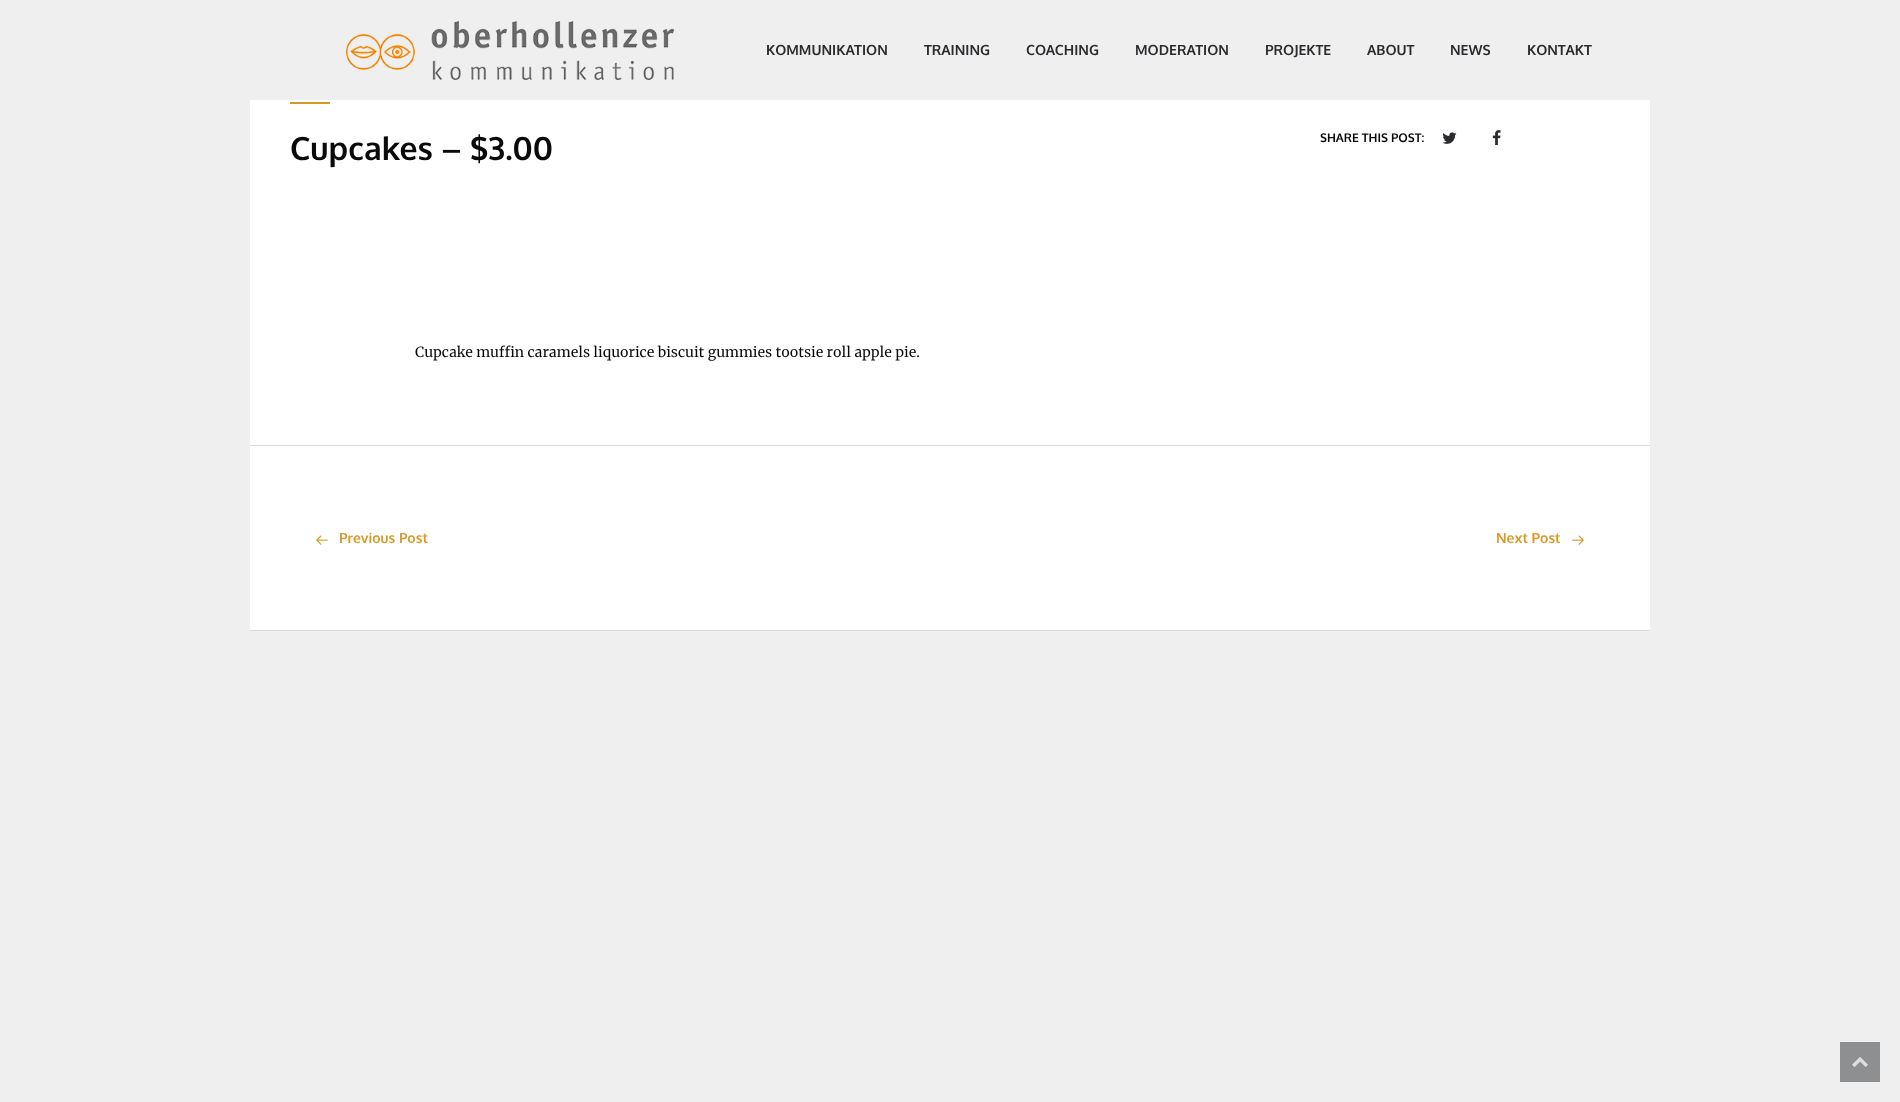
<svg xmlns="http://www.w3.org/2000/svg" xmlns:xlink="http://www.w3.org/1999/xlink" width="1900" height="1102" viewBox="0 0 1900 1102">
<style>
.cls-1{font:bold 14px Oxygen;fill:#2a2b2f}
.cls-2{font:bold 32px Oxygen;fill:#0a0a0a}
.cls-3{font:bold 12px Oxygen;fill:#0a0a0a}
.cls-4{font:14px Merriweather;fill:#0a0a0a}
.cls-5{font:bold 14px Oxygen;fill:#d99927}
</style>
<rect width="100%" height="100%" fill="#efefef"/>
<image xlink:href="image0.png" x="346" y="21" width="328" height="59"/>
<rect fill="#ffffff" x="250" y="100" width="1400" height="345"/>
<rect fill="#d99927" x="290" y="102" width="40" height="2"/>
<image xlink:href="image1.png" x="1442" y="132" width="15" height="12"/>
<image xlink:href="image2.png" x="1492" y="130" width="9" height="15"/>
<rect fill="#dbdbdc" x="250" y="445" width="1400" height="1"/>
<rect fill="#ffffff" x="250" y="446" width="1400" height="184"/>
<image xlink:href="image3.png" x="316" y="535" width="12" height="10"/>
<image xlink:href="image4.png" x="1572" y="535" width="12" height="10"/>
<rect fill="#dbdbdc" x="250" y="630" width="1400" height="1"/>
<rect fill="#8e8f91" x="1840" y="1042" width="40" height="40"/>
<image xlink:href="image5.png" x="1852" y="1057" width="16" height="10"/>
<text class="cls-1" x="766" y="55">KOMMUNIKATION</text>
<text class="cls-1" x="924" y="55">TRAINING</text>
<text class="cls-1" x="1026" y="55">COACHING</text>
<text class="cls-1" x="1135" y="55">MODERATION</text>
<text class="cls-1" x="1265" y="55">PROJEKTE</text>
<text class="cls-1" x="1367" y="55">ABOUT</text>
<text class="cls-1" x="1450" y="55">NEWS</text>
<text class="cls-1" x="1527" y="55">KONTAKT</text>
<text class="cls-2" x="290" y="160">Cupcakes – $3.00</text>
<text class="cls-3" x="1320" y="142">SHARE THIS POST:</text>
<text class="cls-4" x="415" y="357">Cupcake muffin caramels liquorice biscuit gummies tootsie roll apple pie.</text>
<text class="cls-5" x="339" y="543">Previous Post</text>
<text class="cls-5" x="1496" y="543">Next Post</text>
</svg>
